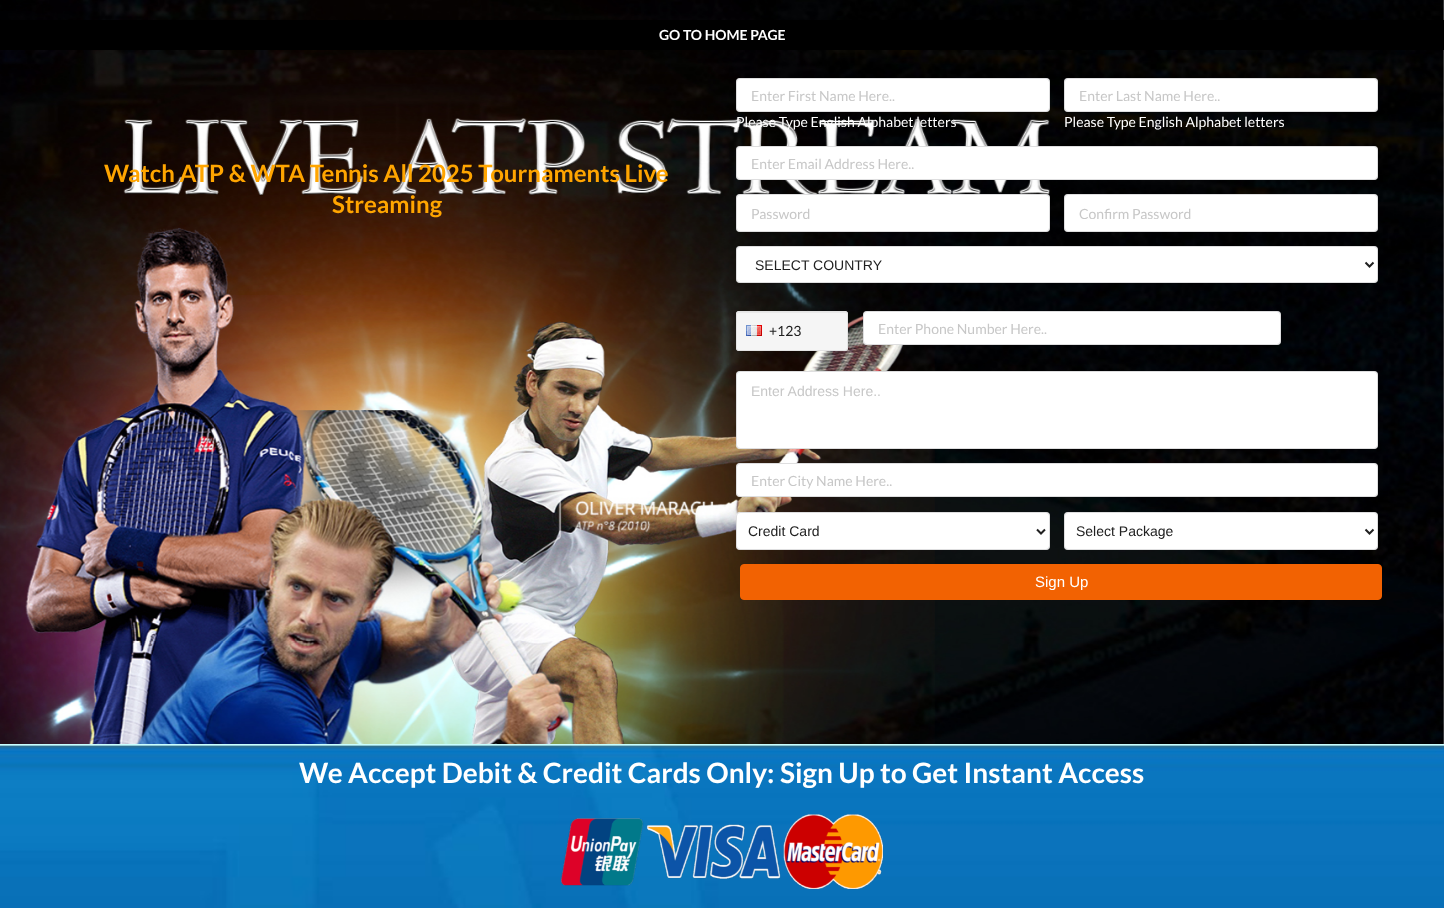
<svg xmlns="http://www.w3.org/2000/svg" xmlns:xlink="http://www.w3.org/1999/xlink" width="1444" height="908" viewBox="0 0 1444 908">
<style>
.cls-1{font:bold 14px Lato;fill:#ffffff}
.cls-2{font:bold 24px Lato;fill:#ffa500}
.cls-3{font:14px Lato;fill:#c7c7c7}
.cls-4{font:14px Lato;fill:#ffffff}
.cls-5{font:14px Liberation Sans;fill:#212121}
.cls-6{font:14px Lato;fill:#212121}
.cls-7{font:14px Liberation Sans;fill:#c7c7c7}
.cls-8{font:15px Liberation Sans;fill:#ffffff}
.cls-9{font:bold 28px Lato;fill:#ffffff}
</style>
<rect width="100%" height="100%" fill="#ffffff"/>
<image xlink:href="image0.png" x="0" y="0" width="1444" height="744"/>
<rect fill="#000000" x="0" y="20" width="1444" height="30"/>
<rect fill="#ffffff" x="736" y="78" width="314" height="34" rx="4"/>
<rect fill="none" stroke="#222426" stroke-opacity="0.15" x="736.5" y="78.5" width="313" height="33" rx="3.5"/>
<rect fill="#ffffff" x="1064" y="78" width="314" height="34" rx="4"/>
<rect fill="none" stroke="#222426" stroke-opacity="0.15" x="1064.5" y="78.5" width="313" height="33" rx="3.5"/>
<rect fill="#ffffff" x="736" y="146" width="642" height="34" rx="4"/>
<rect fill="none" stroke="#222426" stroke-opacity="0.15" x="736.5" y="146.5" width="641" height="33" rx="3.5"/>
<rect fill="#ffffff" x="736" y="194" width="314" height="38" rx="4"/>
<rect fill="none" stroke="#222426" stroke-opacity="0.15" x="736.5" y="194.5" width="313" height="37" rx="3.5"/>
<rect fill="#ffffff" x="1064" y="194" width="314" height="38" rx="4"/>
<rect fill="none" stroke="#222426" stroke-opacity="0.15" x="1064.5" y="194.5" width="313" height="37" rx="3.5"/>
<rect fill="#ffffff" x="736" y="246" width="642" height="37" rx="4"/>
<rect fill="none" stroke="#222426" stroke-opacity="0.15" x="736.5" y="246.5" width="641" height="36" rx="3.5"/>
<path fill="none" stroke="#212121" stroke-width="2" d="M1365.5 262.5L1369.5 266.5L1373.5 262.5"/>
<rect fill="#f5f5f5" x="736" y="311" width="112" height="40" rx="3"/>
<path fill="#e9e9e9" d="M739 313H845C846 313 847 314 847 315C847 314 847 312 845 312H739C737 312 737 314 737 315C737 314 738 313 739 313Z"/>
<rect fill="none" stroke="#e3e3e3" x="736.5" y="311.5" width="111" height="39" rx="2.5"/>
<image xlink:href="image1.png" x="746" y="325" width="16" height="11"/>
<rect fill="#ffffff" x="863" y="311" width="418" height="34" rx="4"/>
<rect fill="none" stroke="#222426" stroke-opacity="0.15" x="863.5" y="311.5" width="417" height="33" rx="3.5"/>
<rect fill="#ffffff" x="736" y="371" width="642" height="78" rx="4"/>
<rect fill="none" stroke="#222426" stroke-opacity="0.15" x="736.5" y="371.5" width="641" height="77" rx="3.5"/>
<rect fill="#ffffff" x="736" y="463" width="642" height="34" rx="4"/>
<rect fill="none" stroke="#222426" stroke-opacity="0.15" x="736.5" y="463.5" width="641" height="33" rx="3.5"/>
<rect fill="#ffffff" x="736" y="512" width="314" height="38" rx="4"/>
<rect fill="none" stroke="#222426" stroke-opacity="0.15" x="736.5" y="512.5" width="313" height="37" rx="3.5"/>
<path fill="none" stroke="#212121" stroke-width="2" d="M1037 529.5L1041 533.5L1045 529.5"/>
<rect fill="#ffffff" x="1064" y="512" width="314" height="38" rx="4"/>
<rect fill="none" stroke="#222426" stroke-opacity="0.15" x="1064.5" y="512.5" width="313" height="37" rx="3.5"/>
<path fill="none" stroke="#212121" stroke-width="2" d="M1365.5 529.5L1369.5 533.5L1373.5 529.5"/>
<rect fill="#f26202" stroke="#f26202" x="740.5" y="564.5" width="641" height="35" rx="3.5"/>
<image xlink:href="image2.png" x="0" y="744" width="1444" height="164"/>
<image xlink:href="image3.png" x="561" y="814" width="322" height="75"/>
<text class="cls-1" x="659" y="40">GO TO HOME PAGE</text>
<text class="cls-2" x="104" y="182">Watch ATP &amp; WTA Tennis All 2025 Tournaments Live</text>
<text class="cls-2" x="332" y="213">Streaming</text>
<text class="cls-3" x="751" y="101">Enter First Name Here..</text>
<text class="cls-4" x="736" y="127">Please Type English Alphabet letters</text>
<text class="cls-3" x="1079" y="101">Enter Last Name Here..</text>
<text class="cls-4" x="1064" y="127">Please Type English Alphabet letters</text>
<text class="cls-3" x="751" y="169">Enter Email Address Here..</text>
<text class="cls-3" x="751" y="219">Password</text>
<text class="cls-3" x="1079" y="219">Confirm Password</text>
<text class="cls-5" x="755" y="270">SELECT COUNTRY</text>
<text class="cls-6" x="769" y="336">+123</text>
<text class="cls-3" x="878" y="334">Enter Phone Number Here..</text>
<text class="cls-7" x="751" y="396">Enter Address Here..</text>
<text class="cls-3" x="751" y="486">Enter City Name Here..</text>
<text class="cls-5" x="748" y="536">Credit Card</text>
<text class="cls-5" x="1076" y="536">Select Package</text>
<text class="cls-8" x="1035" y="587">Sign Up</text>
<text class="cls-9" x="299" y="783">We Accept Debit &amp; Credit Cards Only: Sign Up to Get Instant Access</text>
</svg>
